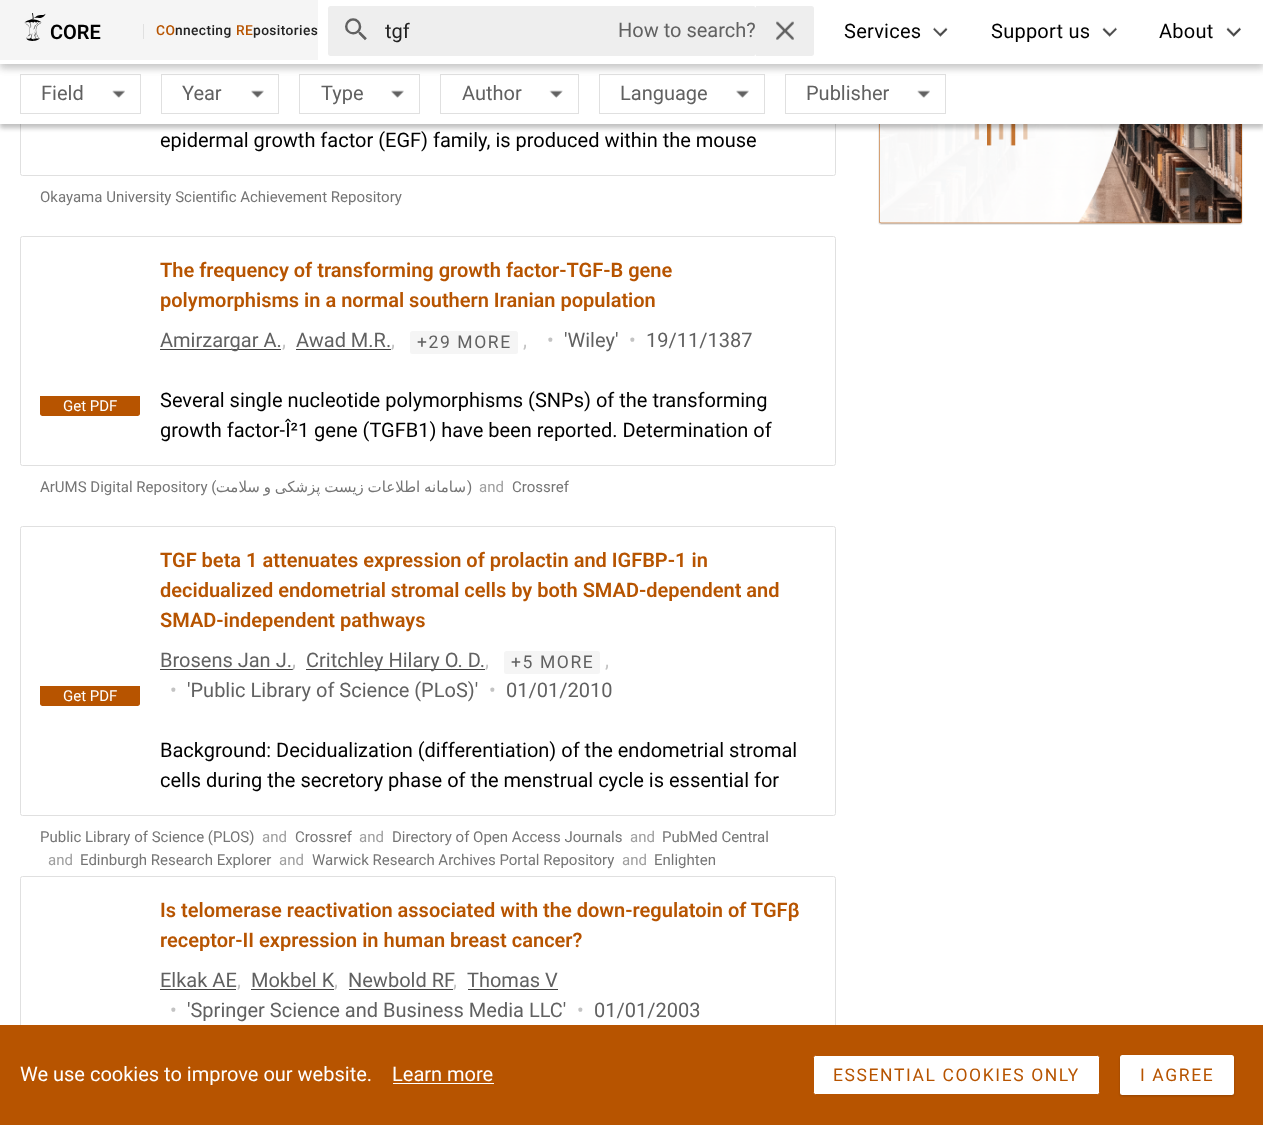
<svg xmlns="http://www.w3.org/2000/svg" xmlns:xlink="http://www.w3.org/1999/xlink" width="1263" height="1125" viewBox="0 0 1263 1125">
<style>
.cls-1{font:600 20px Roboto;fill:#000000}
.cls-2{font:500 13.75px Roboto;letter-spacing:0.4px;fill:#b75400}
.cls-3{font:500 13.75px Roboto;letter-spacing:0.4px;fill:#212121}
.cls-4{font:20px Roboto;fill:#212121}
.cls-5{font:20px Roboto;fill:#616161}
.cls-6{font:20px Roboto;letter-spacing:0.25px;fill:#000000}
.cls-7{font:20px Roboto;fill:#000000}
.cls-8{font:15px Roboto;fill:#757575}
.cls-9{font:600 20px Roboto;fill:#b75400}
.cls-10{font:20px Roboto;fill:#c3c3c3}
.cls-11{font:17.5px Roboto;letter-spacing:1.6px;fill:#616161}
.cls-12{font:15px Roboto;fill:#ffffff}
.cls-13{font:15px DejaVu Sans;direction:rtl;fill:#757575}
.cls-14{font:15px Roboto;fill:#9e9e9e}
.cls-15{font:20px Roboto;fill:#bbbbbb}
.cls-16{font:20px Roboto;fill:#ffffff}
.cls-17{font:17.5px Roboto;letter-spacing:1.6px;fill:#b75400}
</style>
<rect width="100%" height="100%" fill="#ffffff"/>
<rect fill="none" stroke="#e0e0e0" x="20.5" y="-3.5" width="815" height="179" rx="2"/>
<image xlink:href="image9.png" x="878" y="124" width="365" height="101"/>
<rect fill="#000000" fill-opacity="0.14" filter="blur(2.5px)" x="0" y="68" width="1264" height="60"/>
<rect fill="#000000" fill-opacity="0.12" filter="blur(2px)" x="0" y="68" width="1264" height="60"/>
<rect fill="#ffffff" x="0" y="64" width="1263" height="60"/>
<rect fill="none" stroke="#e0e0e0" x="20.5" y="74.5" width="120" height="39"/>
<rect fill="none" stroke="#e0e0e0" x="161.5" y="74.5" width="117" height="39"/>
<rect fill="none" stroke="#e0e0e0" x="299.5" y="74.5" width="120" height="39"/>
<rect fill="none" stroke="#e0e0e0" x="440.5" y="74.5" width="138" height="39"/>
<rect fill="none" stroke="#e0e0e0" x="599.5" y="74.5" width="165" height="39"/>
<rect fill="none" stroke="#e0e0e0" x="785.5" y="74.5" width="160" height="39"/>
<rect fill="#000000" fill-opacity="0.14" filter="blur(3px)" x="0" y="5" width="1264" height="64"/>
<rect fill="#000000" fill-opacity="0.12" filter="blur(6px)" x="0" y="1" width="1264" height="64"/>
<rect fill="#ffffff" x="0" y="0" width="1263" height="64"/>
<rect fill="#f5f5f5" x="0" y="0" width="318" height="60"/>
<image xlink:href="image0.png" x="24" y="13" width="22" height="28"/>
<rect fill="#e0e0e0" x="143" y="24" width="1" height="15"/>
<path fill="#eeeeee" d="M330.5 6H385V56H330.5C329 56 328 55 328 53.5V8.5C328 7 329 6 330.5 6Z"/>
<image xlink:href="image1.png" x="345" y="18" width="22" height="23"/>
<rect fill="#eeeeee" x="385" y="6" width="234" height="50"/>
<path fill="#eeeeee" d="M619 6H753.5C755 6 756 7 756 8.5V53.5C756 55 755 56 753.5 56H619Z"/>
<path fill="#eeeeee" d="M756 6H811.5C813 6 814 7 814 8.5V53.5C814 55 813 56 811.5 56H756Z"/>
<image xlink:href="image2.png" x="776" y="21" width="18" height="19"/>
<image xlink:href="image3.png" x="933" y="27" width="15" height="10"/>
<image xlink:href="image4.png" x="1102" y="27" width="15" height="10"/>
<image xlink:href="image5.png" x="1226" y="27" width="15" height="10"/>
<image xlink:href="image6.png" x="112" y="90" width="13" height="8"/>
<image xlink:href="image7.png" x="251" y="90" width="13" height="8"/>
<image xlink:href="image7.png" x="391" y="90" width="13" height="8"/>
<image xlink:href="image8.png" x="549" y="90" width="14" height="8"/>
<image xlink:href="image7.png" x="736" y="90" width="13" height="8"/>
<image xlink:href="image6.png" x="917" y="90" width="13" height="8"/>
<rect fill="none" stroke="#e0e0e0" x="20.5" y="236.5" width="815" height="229" rx="2"/>
<rect fill="#424242" x="160" y="349" width="121" height="1"/>
<rect fill="#424242" x="296" y="349" width="95" height="1"/>
<rect fill="#f5f5f5" x="410" y="331" width="108" height="23" rx="2.5"/>
<path fill="#b75400" d="M40 396H140V413.5C140 415 139 416 137.5 416H42.5C41 416 40 415 40 413.5Z"/>
<rect fill="none" stroke="#e0e0e0" x="20.5" y="526.5" width="815" height="289" rx="2"/>
<path fill="#b75400" d="M40 686H140V703.5C140 705 139 706 137.5 706H42.5C41 706 40 705 40 703.5Z"/>
<rect fill="#424242" x="160" y="669" width="133" height="1"/>
<rect fill="#424242" x="306" y="669" width="179" height="1"/>
<rect fill="#f5f5f5" x="504" y="651" width="96" height="23" rx="2.5"/>
<rect fill="none" stroke="#e0e0e0" x="20.5" y="876.5" width="815" height="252" rx="2"/>
<rect fill="#424242" x="160" y="989" width="76" height="1"/>
<rect fill="#424242" x="251" y="989" width="83" height="1"/>
<rect fill="#424242" x="468" y="989" width="90" height="1"/>
<rect fill="#424242" x="349" y="989" width="104" height="1"/>
<rect fill="#b75400" x="0" y="1025" width="1263" height="100"/>
<rect fill="#ffffff" x="393" y="1083" width="101" height="1"/>
<rect fill="#ffffff" stroke="#b75400" x="813.5" y="1055.5" width="286" height="39" rx="2"/>
<rect fill="#000000" fill-opacity="0.2" filter="blur(1px)" x="1120" y="1056" width="114" height="40" rx="2.5"/>
<rect fill="#ffffff" x="1120" y="1055" width="114" height="40" rx="2.5"/>
<text class="cls-1" x="50" y="39">CORE</text>
<text class="cls-2" x="156" y="35">CO</text>
<text class="cls-3" x="175" y="35">nnecting</text>
<text class="cls-2" x="236" y="35">RE</text>
<text class="cls-3" x="253" y="35">positories</text>
<text class="cls-4" x="385" y="38">tgf</text>
<text class="cls-5" x="618" y="37">How to search?</text>
<text class="cls-6" x="844" y="38">Services</text>
<text class="cls-6" x="991" y="38">Support us</text>
<text class="cls-6" x="1159" y="38">About</text>
<text class="cls-5" x="41" y="100">Field</text>
<text class="cls-5" x="182" y="100">Year</text>
<text class="cls-5" x="321" y="100">Type</text>
<text class="cls-5" x="462" y="100">Author</text>
<text class="cls-5" x="620" y="100">Language</text>
<text class="cls-5" x="806" y="100">Publisher</text>
<text class="cls-7" x="160" y="147">epidermal growth factor (EGF) family, is produced within the mouse</text>
<text class="cls-8" x="40" y="202">Okayama University Scientific Achievement Repository</text>
<text class="cls-9"><tspan x="160" y="277">The frequency of transforming growth factor-TGF-B gene</tspan><tspan x="160" y="307">polymorphisms in a normal southern Iranian population</tspan></text>
<text class="cls-5" x="160" y="347">Amirzargar A.</text>
<text class="cls-10" x="282" y="347">,</text>
<text class="cls-5" x="296" y="347">Awad M.R.</text>
<text class="cls-10" x="391" y="347">,</text>
<text class="cls-11" x="417" y="348">+29 MORE</text>
<text class="cls-10" x="523" y="347">,</text>
<text class="cls-10" x="547" y="347">•</text>
<text class="cls-5" x="564" y="347">'Wiley'</text>
<text class="cls-10" x="629" y="347">•</text>
<text class="cls-5" x="646" y="347">19/11/1387</text>
<text class="cls-12" x="63" y="411">Get PDF</text>
<text class="cls-7"><tspan x="160" y="407">Several single nucleotide polymorphisms (SNPs) of the transforming</tspan><tspan x="160" y="437">growth factor-Î²1 gene (TGFB1) have been reported. Determination of</tspan></text>
<text class="cls-8" x="40" y="492">ArUMS Digital Repository (</text>
<text class="cls-13" x="466" y="492" word-spacing="-1">سامانه اطلاعات زیست پزشکی و سلامت</text>
<text class="cls-8" x="467" y="492">)</text>
<text class="cls-14" x="479" y="492">and</text>
<text class="cls-8" x="512" y="492">Crossref</text>
<text class="cls-9"><tspan x="160" y="567">TGF beta 1 attenuates expression of prolactin and IGFBP-1 in</tspan><tspan x="160" y="597">decidualized endometrial stromal cells by both SMAD-dependent and</tspan><tspan x="160" y="627">SMAD-independent pathways</tspan></text>
<text class="cls-12" x="63" y="701">Get PDF</text>
<text class="cls-5" x="160" y="667">Brosens Jan J.</text>
<text class="cls-15" x="292" y="667">,</text>
<text class="cls-5" x="306" y="667">Critchley Hilary O. D.</text>
<text class="cls-10" x="485" y="667">,</text>
<text class="cls-11" x="511" y="668">+5 MORE</text>
<text class="cls-10" x="605" y="667">,</text>
<text class="cls-10" x="170" y="697">•</text>
<text class="cls-5" x="187" y="697">'Public Library of Science (PLoS)'</text>
<text class="cls-10" x="489" y="697">•</text>
<text class="cls-5" x="506" y="697">01/01/2010</text>
<text class="cls-7"><tspan x="160" y="757">Background: Decidualization (differentiation) of the endometrial stromal</tspan><tspan x="160" y="787">cells during the secretory phase of the menstrual cycle is essential for</tspan></text>
<text class="cls-8" x="40" y="842">Public Library of Science (PLOS)</text>
<text class="cls-14" x="262" y="842">and</text>
<text class="cls-8" x="295" y="842">Crossref</text>
<text class="cls-14" x="359" y="842">and</text>
<text class="cls-8" x="392" y="842">Directory of Open Access Journals</text>
<text class="cls-14" x="630" y="842">and</text>
<text class="cls-8" x="662" y="842">PubMed Central</text>
<text class="cls-14" x="48" y="865">and</text>
<text class="cls-8" x="80" y="865">Edinburgh Research Explorer</text>
<text class="cls-14" x="279" y="865">and</text>
<text class="cls-8" x="312" y="865">Warwick Research Archives Portal Repository</text>
<text class="cls-14" x="622" y="865">and</text>
<text class="cls-8" x="654" y="865">Enlighten</text>
<text class="cls-9"><tspan x="160" y="917">Is telomerase reactivation associated with the down-regulatoin of TGFβ</tspan><tspan x="160" y="947">receptor-II expression in human breast cancer?</tspan></text>
<text class="cls-5" x="160" y="987">Elkak AE</text>
<text class="cls-10" x="237" y="987">,</text>
<text class="cls-5" x="251" y="987">Mokbel K</text>
<text class="cls-10" x="334" y="987">,</text>
<text class="cls-5" x="348" y="987">Newbold RF</text>
<text class="cls-5" x="467" y="987">Thomas V</text>
<text class="cls-10" x="453" y="987">,</text>
<text class="cls-10" x="170" y="1017">•</text>
<text class="cls-5" x="187" y="1017">'Springer Science and Business Media LLC'</text>
<text class="cls-10" x="577" y="1017">•</text>
<text class="cls-5" x="594" y="1017">01/01/2003</text>
<text class="cls-16" x="20" y="1081">We use cookies to improve our website.</text>
<text class="cls-16" x="392" y="1081">Learn more</text>
<text class="cls-17" x="833" y="1081">ESSENTIAL COOKIES ONLY</text>
<text class="cls-17" x="1140" y="1081">I AGREE</text>
</svg>
